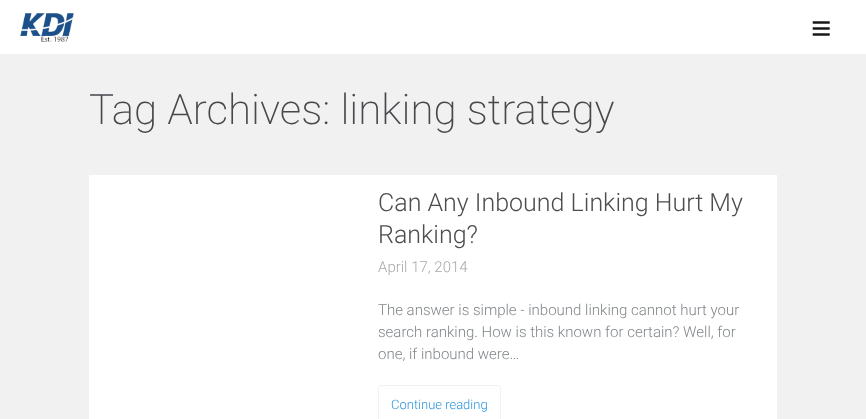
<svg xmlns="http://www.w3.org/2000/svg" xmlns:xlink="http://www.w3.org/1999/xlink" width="866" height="419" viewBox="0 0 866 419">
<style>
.cls-1{font:35px Liberation Sans;fill:#171717}
.cls-2{font:200 42px Roboto;fill:#46484b}
.cls-3{font:300 25px Roboto;fill:#4d4d4d}
.cls-4{font:300 15px Roboto;fill:#a8a8a8}
.cls-5{font:300 15px Roboto;fill:#82868a}
.cls-6{font:300 13px Roboto;fill:#2695df}
</style>
<rect width="100%" height="100%" fill="#ffffff"/>
<image xlink:href="image0.png" x="20" y="13" width="54" height="29"/>
<rect fill="#f1f1f1" x="0" y="54" width="866" height="365"/>
<rect fill="#ffffff" x="89" y="175" width="688" height="244"/>
<rect fill="none" stroke="#f2f2f2" x="378.5" y="385.5" width="122" height="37" rx="2.5"/>
<text class="cls-1" x="811" y="40">≡</text>
<text class="cls-2" x="89" y="124">Tag Archives: linking strategy</text>
<text class="cls-3"><tspan x="378" y="211">Can Any Inbound Linking Hurt My</tspan><tspan x="378" y="243">Ranking?</tspan></text>
<text class="cls-4" x="378" y="272">April 17, 2014</text>
<text class="cls-5"><tspan x="378" y="315">The answer is simple - inbound linking cannot hurt your</tspan><tspan x="378" y="337">search ranking. How is this known for certain? Well, for</tspan><tspan x="378" y="359">one, if inbound were…</tspan></text>
<text class="cls-6" x="391" y="409">Continue reading</text>
</svg>
